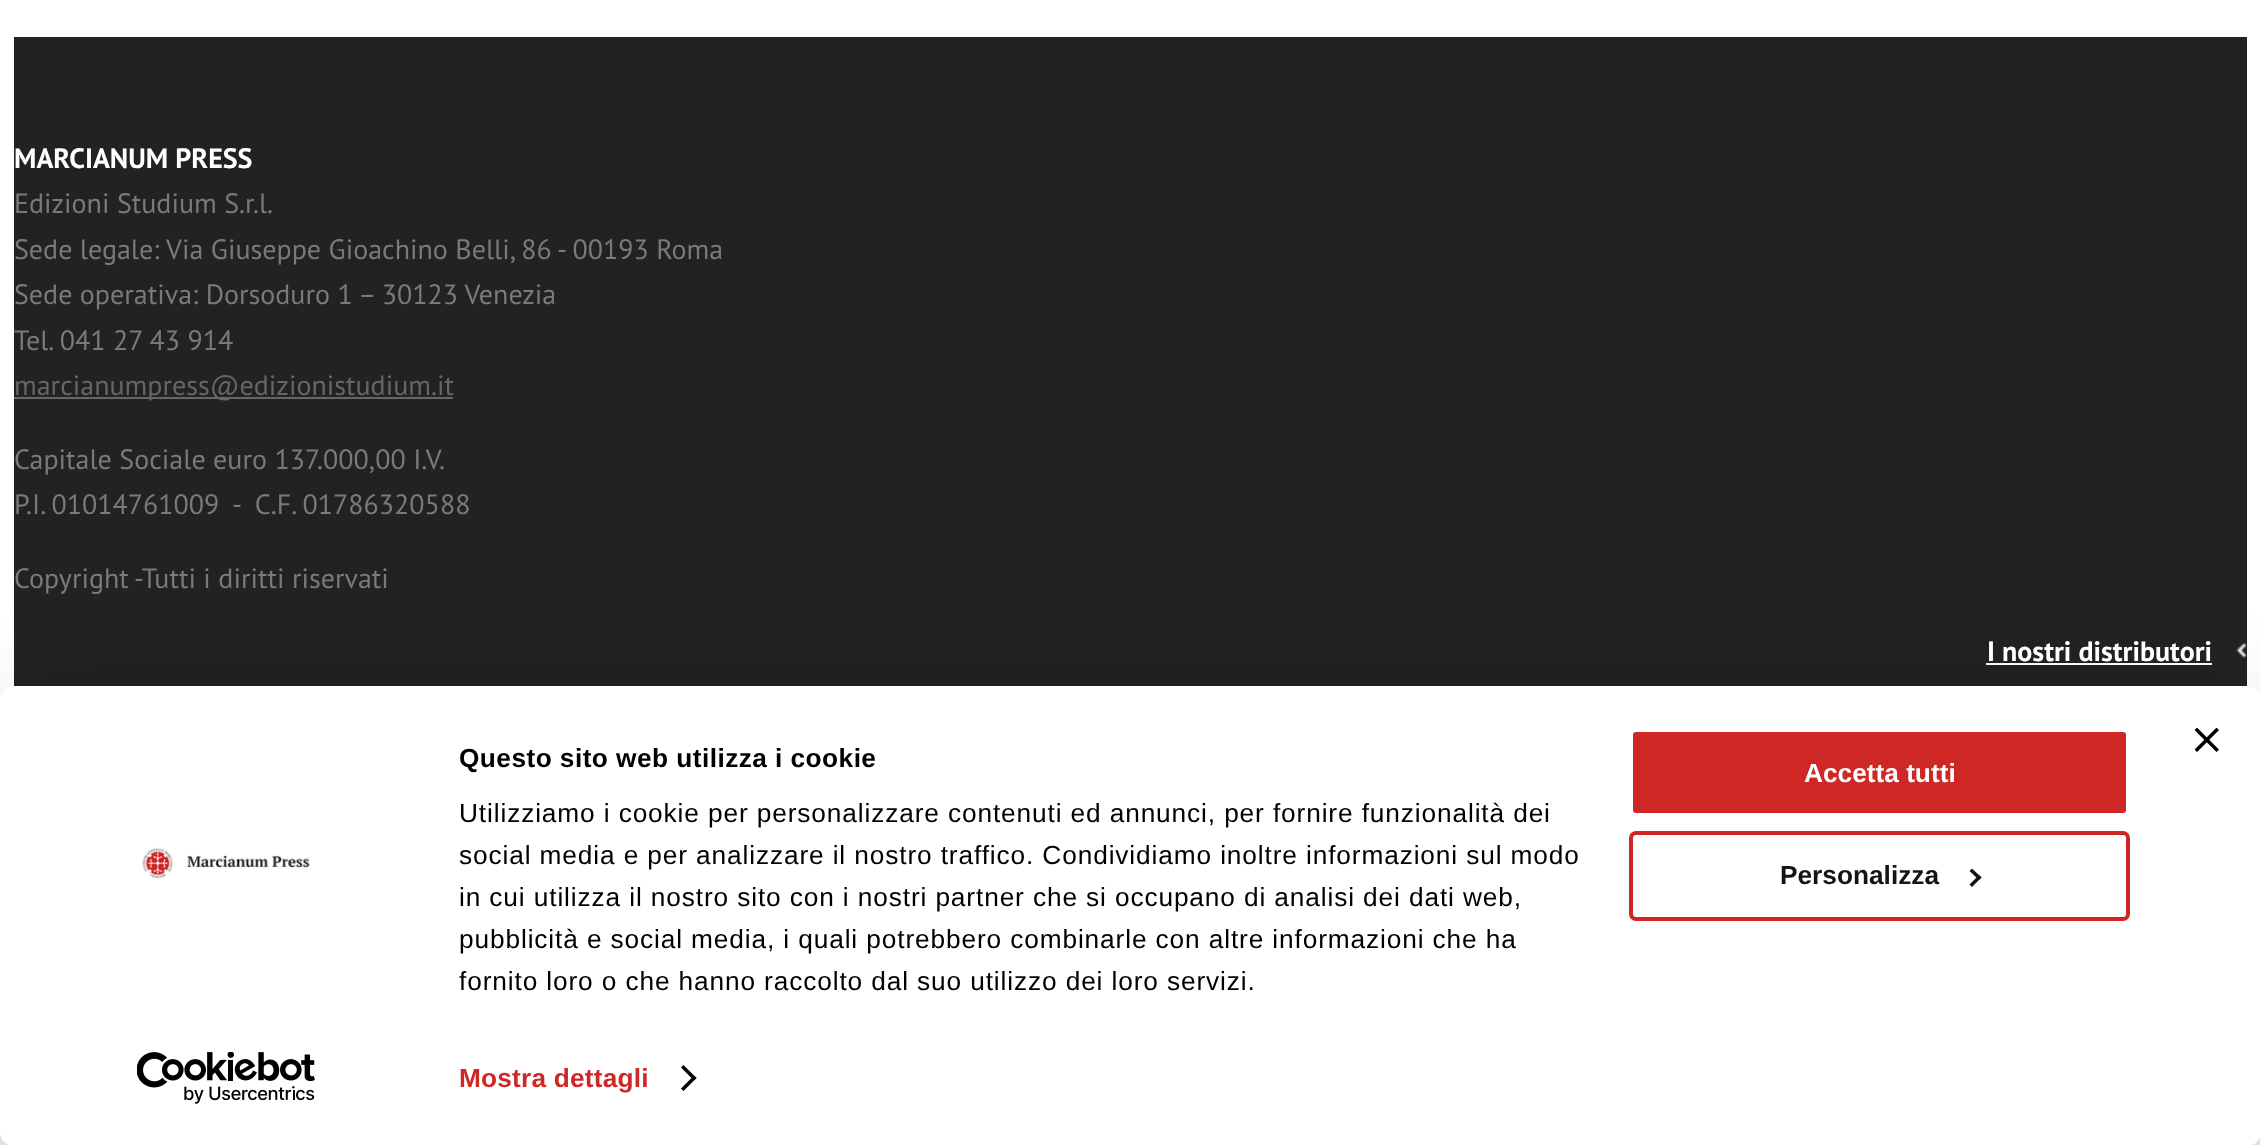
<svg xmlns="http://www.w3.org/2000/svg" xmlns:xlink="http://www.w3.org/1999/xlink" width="2260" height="1145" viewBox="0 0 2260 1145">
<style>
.cls-1{font:bold 28px PT Sans;fill:#ffffff}
.cls-2{font:28px PT Sans;fill:#7a7a7a}
.cls-3{font:28px PT Sans;fill:#666666}
.cls-4{font:bold 26.25px Liberation Sans;letter-spacing:0.45px;fill:#000000}
.cls-5{font:26.25px Liberation Sans;letter-spacing:0.88px;fill:#000000}
.cls-6{font:bold 26.25px Liberation Sans;letter-spacing:0.2px;fill:#cf2726}
.cls-7{font:bold 26.25px Liberation Sans;fill:#ffffff}
.cls-8{font:bold 26.25px Liberation Sans;fill:#141414}
</style>
<rect width="100%" height="100%" fill="#ffffff"/>
<rect fill="#222222" x="14" y="37" width="2233" height="649"/>
<rect fill="#666666" x="14" y="397" width="439" height="2"/>
<rect fill="#ffffff" x="1986" y="663" width="226" height="2"/>
<image xlink:href="image0.png" x="2236" y="642" width="11" height="16"/>
<rect fill="#000000" fill-opacity="0.3" filter="blur(61px)" x="0" y="739" width="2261" height="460" rx="14"/>
<rect fill="#ffffff" x="0" y="686" width="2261" height="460" rx="14"/>
<image xlink:href="image1.png" x="2195" y="728" width="24" height="24"/>
<path fill="#000000" d="M683.5 1065L696.5 1078L694 1080.5L681 1067.5Z"/>
<path fill="#000000" d="M694 1075.5L696.5 1078L683.5 1091L681 1088.5Z"/>
<rect fill="#cf2726" stroke="#ffffff" stroke-width="4" x="1631" y="730" width="497" height="85" rx="5"/>
<rect fill="none" stroke="#cf2726" stroke-width="4" x="1631" y="833" width="497" height="86" rx="5"/>
<path fill="#141414" d="M1972 868.5L1981.5 877.5L1979 880L1969.5 871Z"/>
<path fill="#141414" d="M1979 875L1981.5 877.5L1972 887L1969.5 884.5Z"/>
<image xlink:href="image2.png" x="142" y="847" width="168" height="32"/>
<image xlink:href="image3.png" x="137" y="1052" width="178" height="52"/>
<text class="cls-1" x="14" y="168">MARCIANUM PRESS</text>
<text class="cls-2"><tspan x="14" y="213">Edizioni Studium S.r.l.</tspan><tspan x="14" y="259">Sede legale: Via Giuseppe Gioachino Belli, 86 - 00193 Roma</tspan><tspan x="14" y="304">Sede operativa: Dorsoduro 1 – 30123 Venezia</tspan><tspan x="14" y="350">Tel. 041 27 43 914</tspan></text>
<text class="cls-3" x="14" y="395">marcianumpress@edizionistudium.it</text>
<text class="cls-2" xml:space="preserve"><tspan x="14" y="469">Capitale Sociale euro 137.000,00 I.V.</tspan><tspan x="14" y="514">P.I. 01014761009  -  C.F. 01786320588</tspan></text>
<text class="cls-2" x="14" y="588">Copyright -Tutti i diritti riservati</text>
<text class="cls-1" x="1987" y="661">I nostri distributori</text>
<text class="cls-4" x="459" y="767">Questo sito web utilizza i cookie</text>
<text class="cls-5"><tspan x="459" y="822">Utilizziamo i cookie per personalizzare contenuti ed annunci, per fornire funzionalità dei</tspan><tspan x="459" y="864">social media e per analizzare il nostro traffico. Condividiamo inoltre informazioni sul modo</tspan><tspan x="459" y="906">in cui utilizza il nostro sito con i nostri partner che si occupano di analisi dei dati web,</tspan><tspan x="459" y="948">pubblicità e social media, i quali potrebbero combinarle con altre informazioni che ha</tspan><tspan x="459" y="990">fornito loro o che hanno raccolto dal suo utilizzo dei loro servizi.</tspan></text>
<text class="cls-6" x="459" y="1087">Mostra dettagli</text>
<text class="cls-7" x="1804" y="782">Accetta tutti</text>
<text class="cls-8" x="1780" y="884">Personalizza</text>
</svg>
